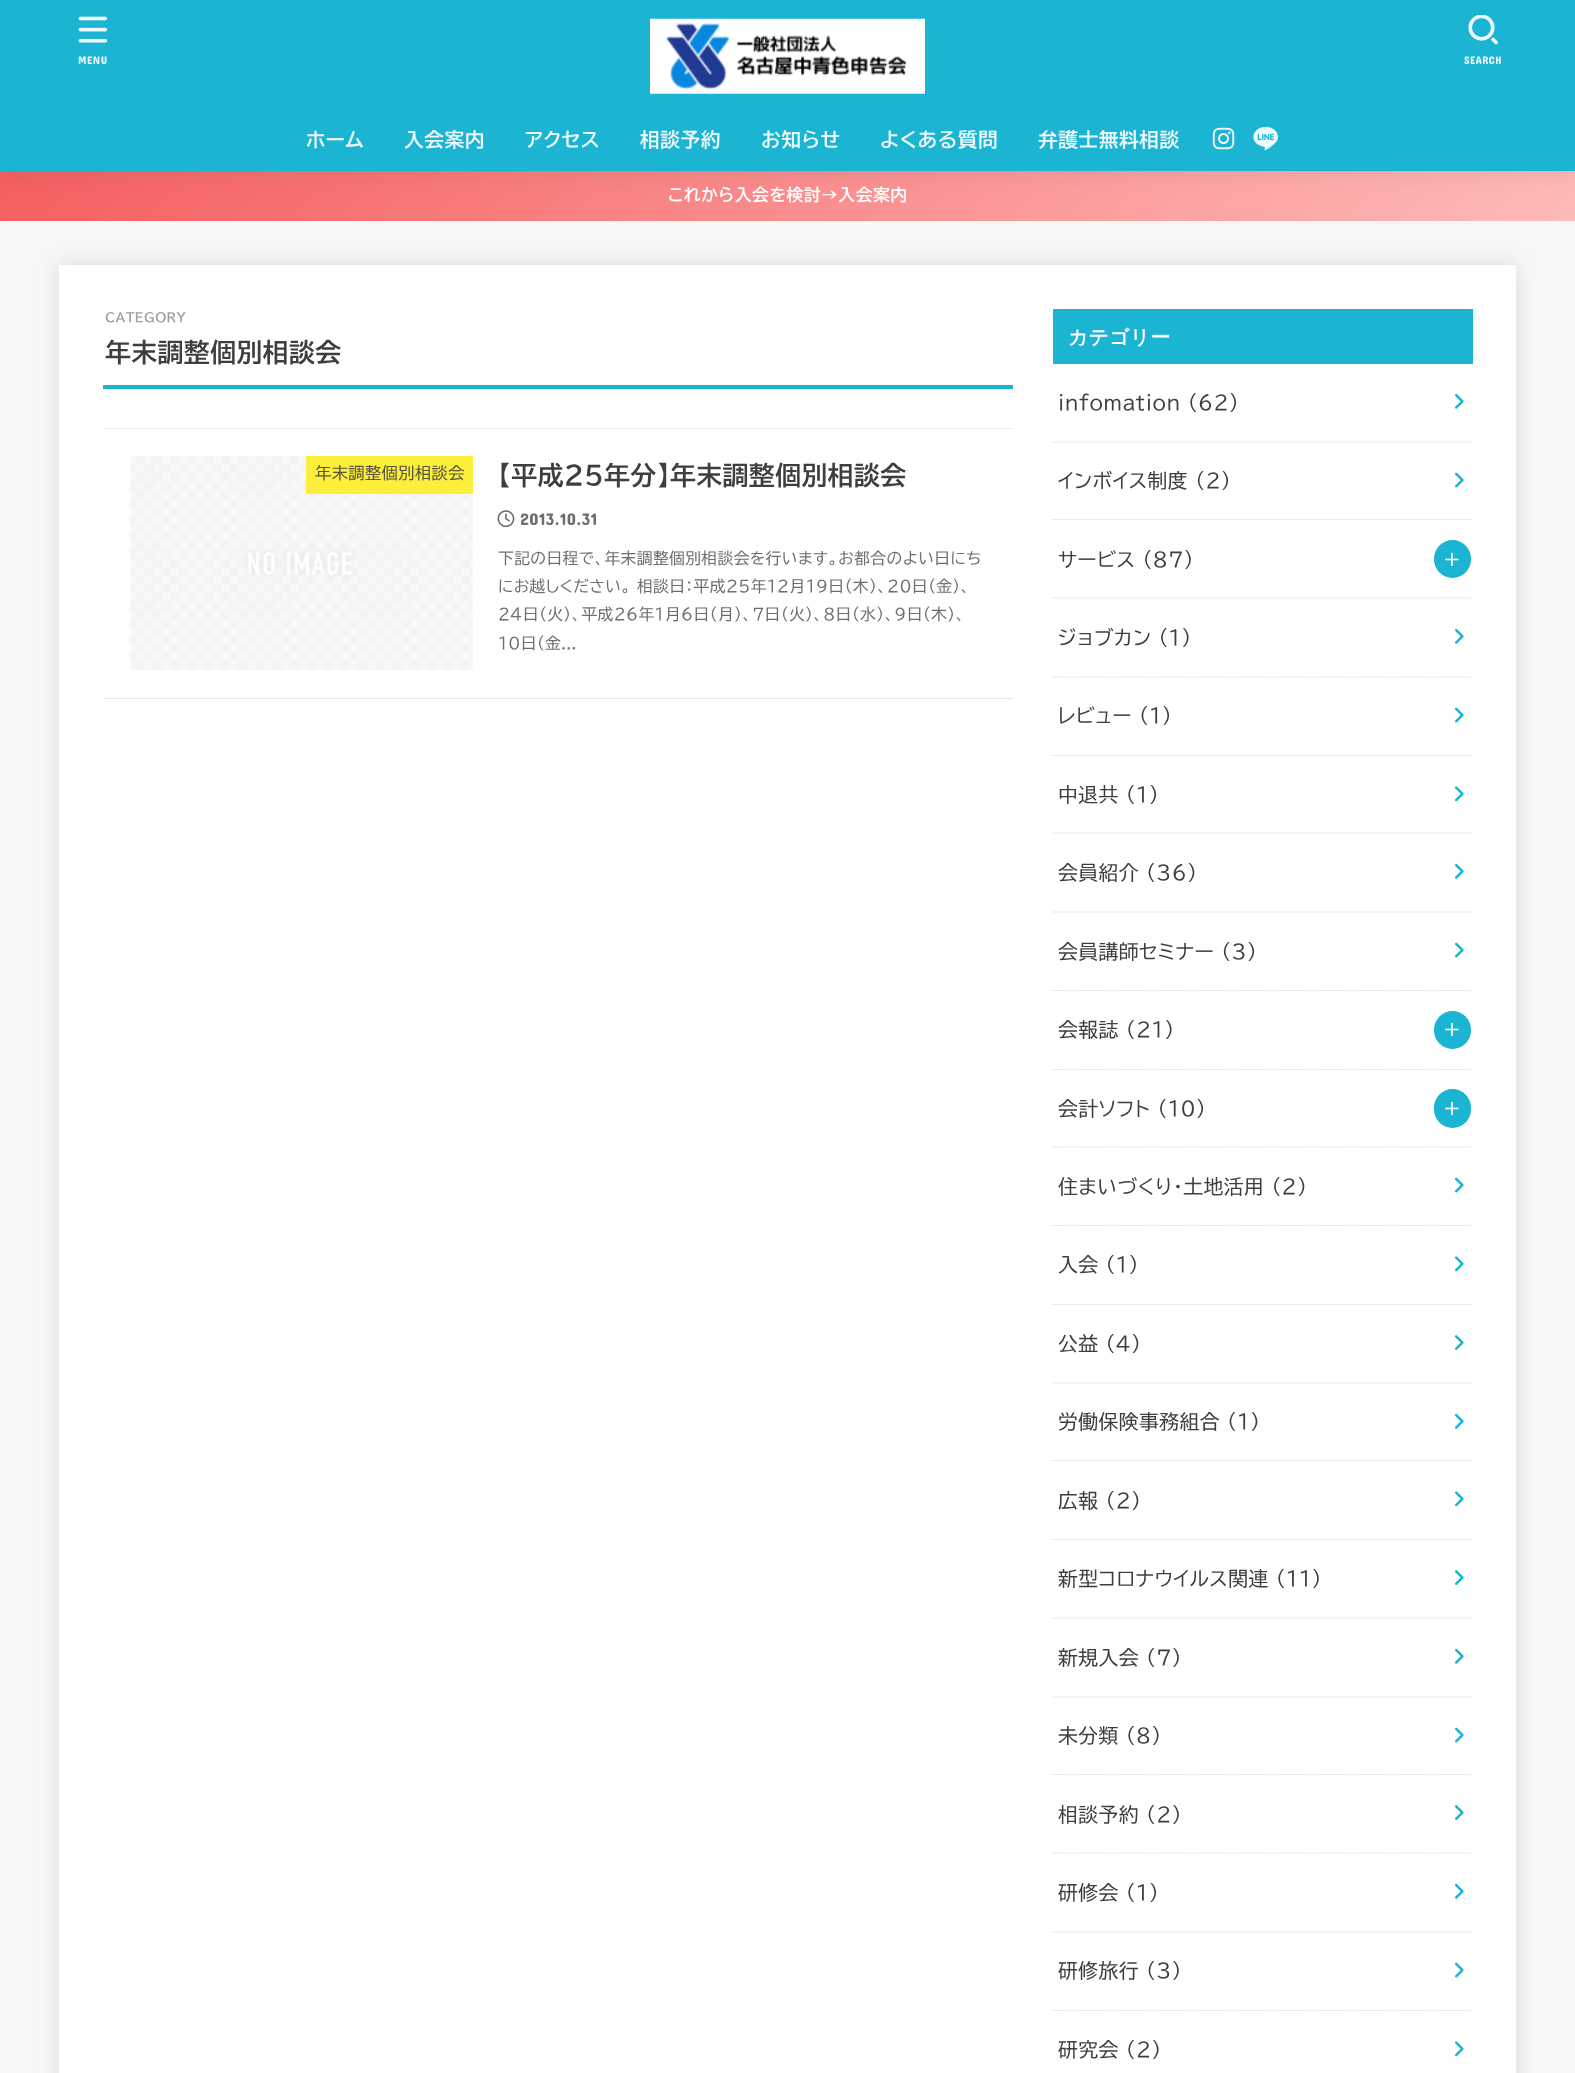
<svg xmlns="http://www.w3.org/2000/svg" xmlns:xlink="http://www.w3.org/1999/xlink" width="1575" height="2073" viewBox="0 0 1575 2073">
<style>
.cls-1{font:11px Concert One;letter-spacing:0.5px;fill:#edf9fc}
.cls-2{font:bold 19.75px BIZ UDPGothic;letter-spacing:0.5px;fill:#edf9fc}
.cls-3{font:bold 16.9px BIZ UDPGothic;letter-spacing:0.4px;fill:#ffffff}
.cls-4{font:bold 12.5px BIZ UDPGothic;letter-spacing:0.4px;fill:#9f9f9f}
.cls-5{font:bold 25.9px BIZ UDPGothic;letter-spacing:0.4px;fill:#3e3e3e}
.cls-6{font:16.25px BIZ UDPGothic;letter-spacing:0.4px;fill:#55533e}
.cls-7{font:16.9px Concert One;letter-spacing:0.4px;fill:#6e6e6e}
.cls-8{font:15.75px BIZ UDPGothic;letter-spacing:0.4px;fill:#6e6e6e}
.cls-9{font:bold 19.75px WenQuanYi Zen Hei;letter-spacing:0.4px;fill:#ffffff}
.cls-10{font:19.75px BIZ UDPGothic;letter-spacing:0.5px;fill:#3e3e3e}
.cls-11{font:bold 19.75px BIZ UDPGothic;letter-spacing:0.5px;fill:#ffffff}
</style>
<defs>
<linearGradient id="g1" gradientUnits="userSpaceOnUse" x1="381" y1="-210" x2="1194" y2="603"><stop offset="0" stop-color="#f55e5e"/><stop offset="1" stop-color="#ffbaba"/></linearGradient>
</defs>
<rect width="100%" height="100%" fill="#f7f7f7"/>
<rect fill="url(#g1)" x="0" y="171" width="1575" height="50"/>
<rect fill="#666666" fill-opacity="0.2" filter="blur(9.5px)" x="0" y="0" width="1575" height="171"/>
<rect fill="#1bb4d3" x="0" y="0" width="1575" height="171"/>
<image xlink:href="image0.png" x="78" y="16" width="30" height="27"/>
<image xlink:href="image1.png" x="650" y="18" width="275" height="76"/>
<image xlink:href="image2.png" x="1468" y="15" width="30" height="30"/>
<image xlink:href="image3.png" x="1212" y="127" width="23" height="23"/>
<image xlink:href="image4.png" x="1253" y="126" width="25" height="25"/>
<rect fill="#666666" fill-opacity="0.2" filter="blur(9.5px)" x="59" y="265" width="1457" height="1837"/>
<rect fill="#ffffff" x="59" y="265" width="1457" height="1808"/>
<rect fill="#1bb4d3" x="103" y="385" width="910" height="4"/>
<rect fill="#e6e6e6" x="103" y="428" width="910" height="1"/>
<rect fill="#e6e6e6" x="103" y="698" width="910" height="1"/>
<image xlink:href="image5.png" x="130" y="456" width="343" height="214"/>
<rect fill="#fcee21" fill-opacity="0.88" x="306" y="456" width="167" height="38"/>
<image xlink:href="image6.png" x="497" y="510" width="18" height="18"/>
<rect fill="#1bb4d3" x="1053" y="309" width="420" height="55"/>
<path fill="none" stroke="#d8d8d8" stroke-width="1.2" stroke-dasharray="1.25 1.25" d="M1052.5 442H1472.5"/>
<image xlink:href="image7.png" x="1455" y="393" width="9" height="16"/>
<path fill="none" stroke="#d8d8d8" stroke-width="1.2" stroke-dasharray="1.25 1.25" d="M1052.5 519.5H1472.5"/>
<image xlink:href="image8.png" x="1455" y="472" width="9" height="16"/>
<path fill="none" stroke="#d8d8d8" stroke-width="1.2" stroke-dasharray="1.25 1.25" d="M1052.5 598H1472.5"/>
<rect fill="#1bb4d3" x="1434" y="540" width="37" height="38" rx="18.5"/>
<path fill="none" stroke="#d8d8d8" stroke-width="1.2" stroke-dasharray="1.25 1.25" d="M1052.5 677H1472.5"/>
<image xlink:href="image7.png" x="1455" y="628" width="9" height="16"/>
<path fill="none" stroke="#d8d8d8" stroke-width="1.2" stroke-dasharray="1.25 1.25" d="M1052.5 755.5H1472.5"/>
<image xlink:href="image8.png" x="1455" y="707" width="9" height="16"/>
<path fill="none" stroke="#d8d8d8" stroke-width="1.2" stroke-dasharray="1.25 1.25" d="M1052.5 833H1472.5"/>
<image xlink:href="image9.png" x="1455" y="786" width="9" height="16"/>
<path fill="none" stroke="#d8d8d8" stroke-width="1.2" stroke-dasharray="1.25 1.25" d="M1052.5 912H1472.5"/>
<image xlink:href="image7.png" x="1455" y="863" width="9" height="16"/>
<path fill="none" stroke="#d8d8d8" stroke-width="1.2" stroke-dasharray="1.25 1.25" d="M1052.5 990.5H1472.5"/>
<image xlink:href="image8.png" x="1455" y="942" width="9" height="16"/>
<path fill="none" stroke="#d8d8d8" stroke-width="1.2" stroke-dasharray="1.25 1.25" d="M1052.5 1069.5H1472.5"/>
<rect fill="#1bb4d3" x="1434" y="1011" width="37" height="38" rx="18.5"/>
<path fill="none" stroke="#d8d8d8" stroke-width="1.2" stroke-dasharray="1.25 1.25" d="M1052.5 1147H1472.5"/>
<rect fill="#1bb4d3" x="1434" y="1089" width="37" height="39" rx="18.5"/>
<path fill="none" stroke="#d8d8d8" stroke-width="1.2" stroke-dasharray="1.25 1.25" d="M1052.5 1225.5H1472.5"/>
<image xlink:href="image8.png" x="1455" y="1177" width="9" height="16"/>
<path fill="none" stroke="#d8d8d8" stroke-width="1.2" stroke-dasharray="1.25 1.25" d="M1052.5 1304.5H1472.5"/>
<image xlink:href="image9.png" x="1455" y="1256" width="9" height="16"/>
<path fill="none" stroke="#d8d8d8" stroke-width="1.2" stroke-dasharray="1.25 1.25" d="M1052.5 1383H1472.5"/>
<image xlink:href="image10.png" x="1455" y="1335" width="9" height="15"/>
<path fill="none" stroke="#d8d8d8" stroke-width="1.2" stroke-dasharray="1.25 1.25" d="M1052.5 1460.5H1472.5"/>
<image xlink:href="image7.png" x="1455" y="1413" width="9" height="16"/>
<path fill="none" stroke="#d8d8d8" stroke-width="1.2" stroke-dasharray="1.25 1.25" d="M1052.5 1539.5H1472.5"/>
<image xlink:href="image9.png" x="1455" y="1491" width="9" height="16"/>
<path fill="none" stroke="#d8d8d8" stroke-width="1.2" stroke-dasharray="1.25 1.25" d="M1052.5 1618H1472.5"/>
<image xlink:href="image10.png" x="1455" y="1570" width="9" height="15"/>
<path fill="none" stroke="#d8d8d8" stroke-width="1.2" stroke-dasharray="1.25 1.25" d="M1052.5 1697H1472.5"/>
<image xlink:href="image7.png" x="1455" y="1648" width="9" height="16"/>
<path fill="none" stroke="#d8d8d8" stroke-width="1.2" stroke-dasharray="1.25 1.25" d="M1052.5 1774.5H1472.5"/>
<image xlink:href="image8.png" x="1455" y="1727" width="9" height="16"/>
<path fill="none" stroke="#d8d8d8" stroke-width="1.2" stroke-dasharray="1.25 1.25" d="M1052.5 1853H1472.5"/>
<image xlink:href="image10.png" x="1455" y="1805" width="9" height="15"/>
<path fill="none" stroke="#d8d8d8" stroke-width="1.2" stroke-dasharray="1.25 1.25" d="M1052.5 1932H1472.5"/>
<image xlink:href="image7.png" x="1455" y="1883" width="9" height="16"/>
<path fill="none" stroke="#d8d8d8" stroke-width="1.2" stroke-dasharray="1.25 1.25" d="M1052.5 2010.5H1472.5"/>
<image xlink:href="image8.png" x="1455" y="1962" width="9" height="16"/>
<image xlink:href="image9.png" x="1455" y="2041" width="9" height="16"/>
<text class="cls-1" x="78" y="64">MENU</text>
<text class="cls-1" x="1464" y="64">SEARCH</text>
<text class="cls-2" x="306" y="147">ホーム</text>
<text class="cls-2" x="404" y="147">入会案内</text>
<text class="cls-2" x="525" y="147">アクセス</text>
<text class="cls-2" x="640" y="147">相談予約</text>
<text class="cls-2" x="761" y="147">お知らせ</text>
<text class="cls-2" x="880" y="147">よくある質問</text>
<text class="cls-2" x="1038" y="147">弁護士無料相談</text>
<text class="cls-3" x="668" y="201">これから入会を検討→入会案内</text>
<text class="cls-4" x="105" y="322">CATEGORY</text>
<text class="cls-5" x="105" y="362">年末調整個別相談会</text>
<text class="cls-6" x="315" y="479">年末調整個別相談会</text>
<text class="cls-5" x="498" y="485">【平成25年分】年末調整個別相談会</text>
<text class="cls-7" x="520" y="525">2013.10.31</text>
<text class="cls-8"><tspan x="498" y="564">下記の日程で、年末調整個別相談会を行います。お都合のよい日にち</tspan><tspan x="498" y="592">にお越しください。 相談日：平成25年12月19日（木）、20日（金）、</tspan><tspan x="498" y="620">24日（火）、平成26年1月6日（月）、7日（火）、8日（水）、9日（木）、</tspan><tspan x="498" y="649">10日（金...</tspan></text>
<text class="cls-9" x="1068" y="344">カテゴリー</text>
<text class="cls-10" x="1058" y="410">infomation (62)</text>
<text class="cls-10" x="1058" y="488">インボイス制度 (2)</text>
<text class="cls-10" x="1058" y="567">サービス (87)</text>
<text class="cls-11" x="1442" y="567">＋</text>
<text class="cls-10" x="1058" y="645">ジョブカン (1)</text>
<text class="cls-10" x="1058" y="723">レビュー (1)</text>
<text class="cls-10" x="1058" y="802">中退共 (1)</text>
<text class="cls-10" x="1058" y="880">会員紹介 (36)</text>
<text class="cls-10" x="1058" y="959">会員講師セミナー (3)</text>
<text class="cls-10" x="1058" y="1037">会報誌 (21)</text>
<text class="cls-11" x="1442" y="1037">＋</text>
<text class="cls-10" x="1058" y="1116">会計ソフト (10)</text>
<text class="cls-11" x="1442" y="1116">＋</text>
<text class="cls-10" x="1058" y="1194">住まいづくり・土地活用 (2)</text>
<text class="cls-10" x="1058" y="1272">入会 (1)</text>
<text class="cls-10" x="1058" y="1351">公益 (4)</text>
<text class="cls-10" x="1058" y="1429">労働保険事務組合 (1)</text>
<text class="cls-10" x="1058" y="1508">広報 (2)</text>
<text class="cls-10" x="1058" y="1586">新型コロナウイルス関連 (11)</text>
<text class="cls-10" x="1058" y="1665">新規入会 (7)</text>
<text class="cls-10" x="1058" y="1743">未分類 (8)</text>
<text class="cls-10" x="1058" y="1822">相談予約 (2)</text>
<text class="cls-10" x="1058" y="1900">研修会 (1)</text>
<text class="cls-10" x="1058" y="1978">研修旅行 (3)</text>
<text class="cls-10" x="1058" y="2057">研究会 (2)</text>
</svg>
